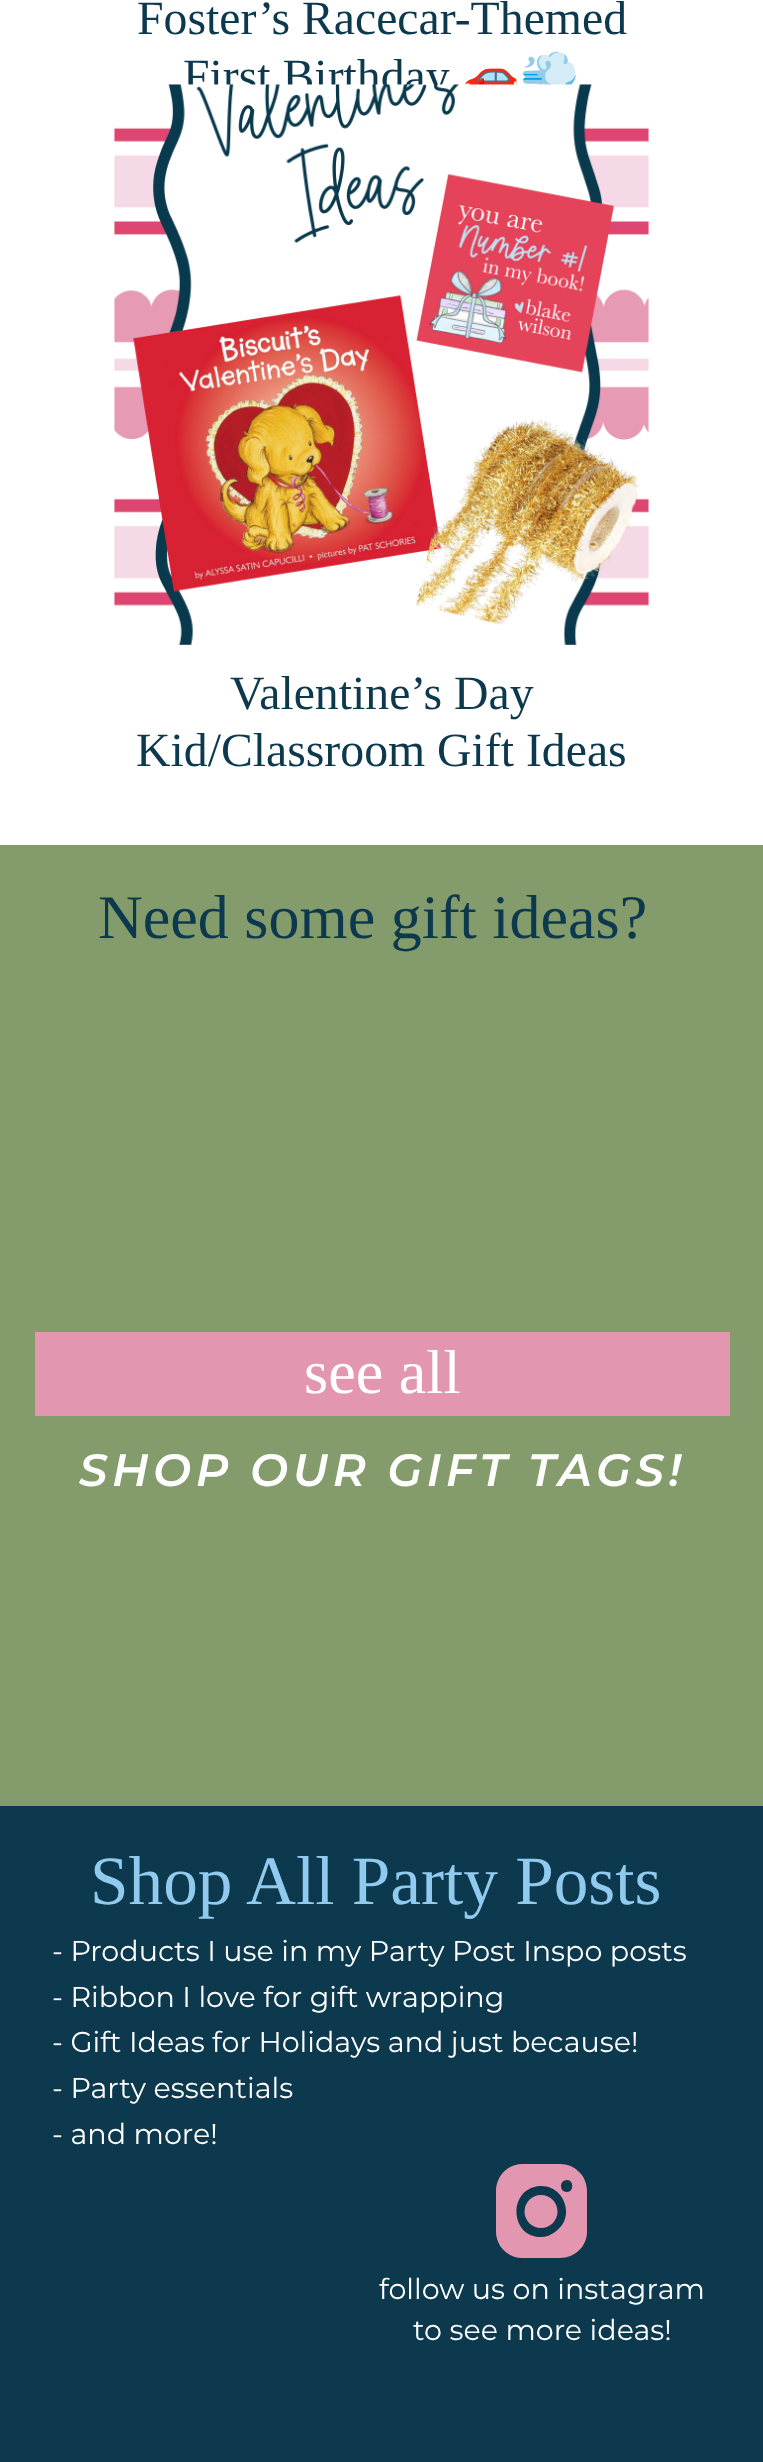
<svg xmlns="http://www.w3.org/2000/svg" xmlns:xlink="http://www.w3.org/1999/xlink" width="763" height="2462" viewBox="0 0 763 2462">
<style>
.cls-1{font:47.75px Liberation Serif;fill:#0c394d}
.cls-2{font:47.75px Noto Color Emoji;fill:#0c394d}
.cls-3{font:62px Liberation Serif;fill:#0c394d}
.cls-4{font:62px Liberation Serif;fill:#ffffff}
.cls-5{font:italic 600 45.25px Montserrat;letter-spacing:4.5px;fill:#ffffff}
.cls-6{font:69.25px Liberation Serif;fill:#90caef}
.cls-7{font:28.6px Montserrat;fill:#ffffff}
</style>
<rect width="100%" height="100%" fill="#ffffff"/>
<rect fill="#849c6b" x="0" y="845" width="763" height="961"/>
<rect fill="#e396b0" x="35" y="1332" width="695" height="84"/>
<rect fill="#0c394d" x="0" y="1806" width="763" height="656"/>
<circle fill="#e396b0" cx="541" cy="2211.5" r="16.5"/>
<path fill="#e396b0" d="M560 2164H522C508 2164 496 2176 496 2191V2232C496 2246 508 2258 522 2258H560C575 2258 587 2246 587 2232V2191C587 2176 575 2164 560 2164ZM541 2237C509 2237 508 2188 540 2186C565 2185 576 2218 555 2232C551 2235 546 2237 541 2237ZM567 2192C559 2192 559 2180 567 2180C574 2180 574 2192 567 2192Z"/>
<text class="cls-1" x="137" y="34">Foster’s Racecar-Themed</text>
<text class="cls-1" x="183" y="92">First Birthday</text>
<text class="cls-2" x="461" y="92">🚗💨</text>
<image xlink:href="image0.png" x="114" y="84" width="535" height="561"/>
<text class="cls-1" x="230" y="709">Valentine’s Day</text>
<text class="cls-1" x="136" y="766">Kid/Classroom Gift Ideas</text>
<text class="cls-3" x="98" y="938">Need some gift ideas?</text>
<text class="cls-4" x="304" y="1393">see all</text>
<text class="cls-5" x="79" y="1486">SHOP OUR GIFT TAGS!</text>
<text class="cls-6" x="90" y="1904">Shop All Party Posts</text>
<text class="cls-7"><tspan x="52" y="1961">- Products I use in my Party Post Inspo posts</tspan><tspan x="52" y="2007">- Ribbon I love for gift wrapping</tspan><tspan x="52" y="2052">- Gift Ideas for Holidays and just because!</tspan><tspan x="52" y="2098">- Party essentials</tspan><tspan x="52" y="2144">- and more!</tspan></text>
<text class="cls-7" x="379" y="2299">follow us on instagram</text>
<text class="cls-7" x="413" y="2340">to see more ideas!</text>
</svg>
